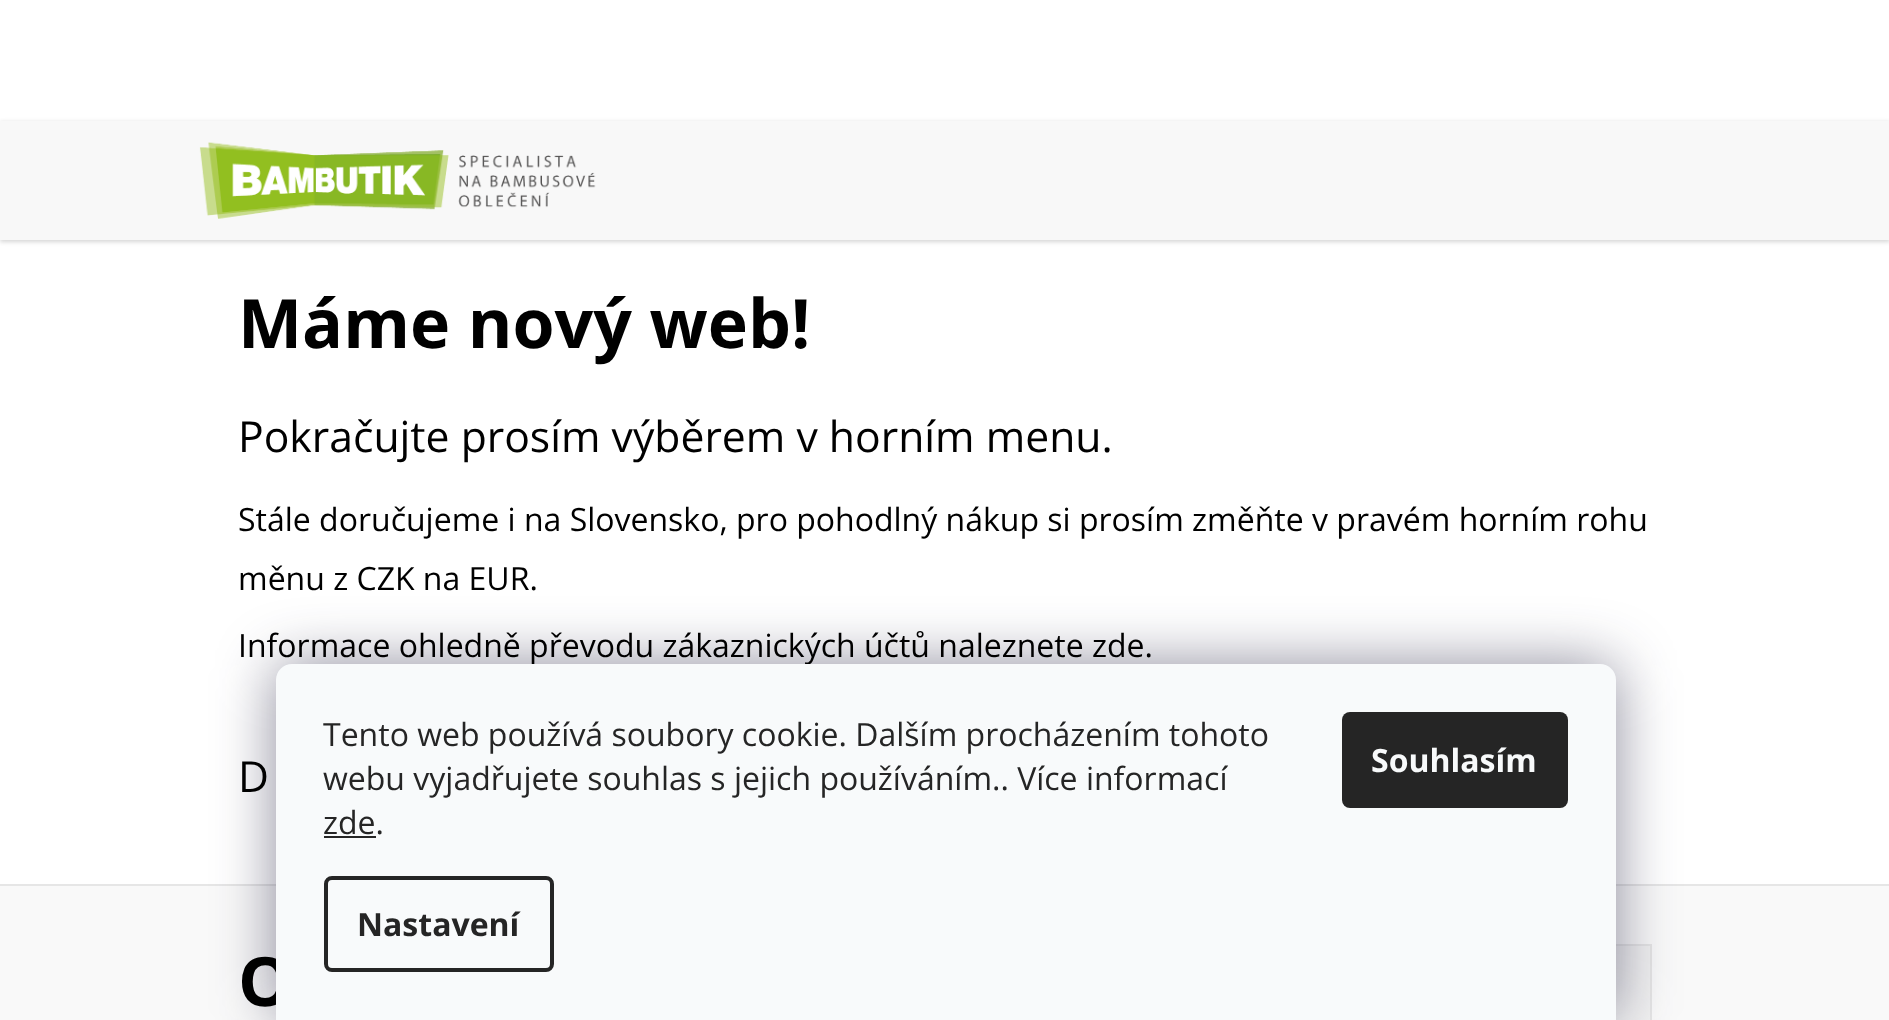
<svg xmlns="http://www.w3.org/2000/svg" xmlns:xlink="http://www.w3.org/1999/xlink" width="1889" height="1020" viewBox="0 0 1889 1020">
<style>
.cls-1{font:bold 68px Open Sans;fill:#000000}
.cls-2{font:42.7px Open Sans;fill:#000000}
.cls-3{font:32px Open Sans;fill:#000000}
.cls-4{font:32px Open Sans;fill:#252525}
.cls-5{font:bold 32px Open Sans;fill:#252525}
.cls-6{font:bold 32px Open Sans;fill:#f8fafb}
</style>
<rect width="100%" height="100%" fill="#ffffff"/>
<rect fill="#000000" fill-opacity="0.16" filter="blur(2px)" x="0" y="122" width="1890" height="120"/>
<rect fill="#f8f8f8" x="0" y="121" width="1889" height="119"/>
<image xlink:href="image0.png" x="199" y="142" width="397" height="77"/>
<rect fill="#f9f9f9" x="0" y="886" width="1889" height="134"/>
<rect fill="#e6e6e6" x="0" y="884" width="1889" height="2"/>
<rect fill="#f2f2f2" x="1616" y="946" width="34" height="74"/>
<rect fill="none" stroke="#e6e6e6" stroke-width="2" x="1405" y="945" width="246" height="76"/>
<rect fill="#1b1939" fill-opacity="0.5" filter="blur(30px)" x="276" y="664" width="1340" height="356" rx="16"/>
<text class="cls-1" x="238" y="348">Máme nový web!</text>
<text class="cls-2" x="238" y="452">Pokračujte prosím výběrem v horním menu.</text>
<text class="cls-3"><tspan x="238" y="531">Stále doručujeme i na Slovensko, pro pohodlný nákup si prosím změňte v pravém horním rohu</tspan><tspan x="238" y="590">měnu z CZK na EUR.</tspan></text>
<text class="cls-3" x="238" y="657">Informace ohledně převodu zákaznických účtů naleznete zde.</text>
<text class="cls-2" x="238" y="792">D</text>
<text class="cls-1" x="238" y="1006">O</text>
<path fill="#f8fafb" d="M292 664H1600C1609 664 1616 671 1616 680V1020H276V680C276 671 283 664 292 664Z"/>
<text class="cls-4"><tspan x="323" y="746">Tento web používá soubory cookie. Dalším procházením tohoto</tspan><tspan x="323" y="790">webu vyjadřujete souhlas s jejich používáním.. Více informací</tspan><tspan x="323" y="834">zde.</tspan></text>
<rect fill="#252525" x="324" y="836" width="52" height="2"/>
<rect fill="none" stroke="#252525" stroke-width="4" x="326" y="878" width="226" height="92" rx="6"/>
<text class="cls-5" x="357" y="936">Nastavení</text>
<rect fill="#252525" x="1342" y="712" width="226" height="96" rx="8"/>
<text class="cls-6" x="1371" y="772">Souhlasím</text>
</svg>
